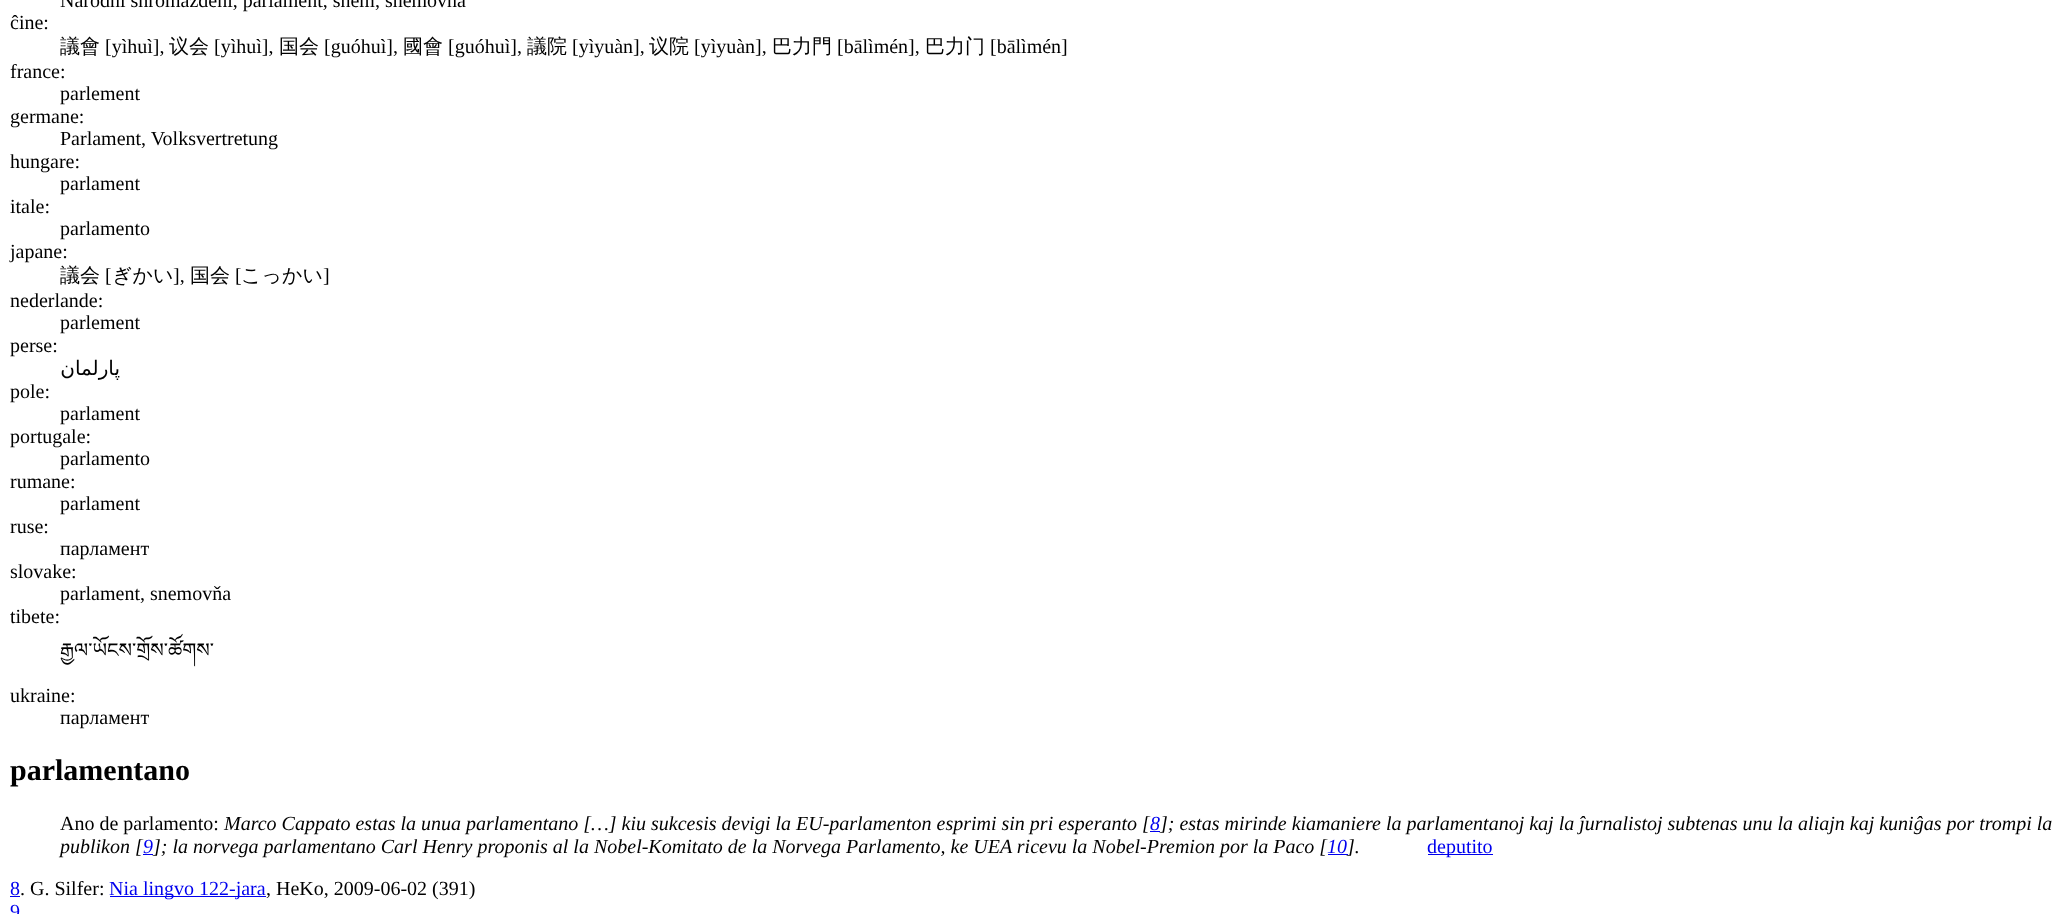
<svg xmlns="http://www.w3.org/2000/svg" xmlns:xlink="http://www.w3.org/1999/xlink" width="2065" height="914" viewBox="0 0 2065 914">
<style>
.cls-1{font:20px Liberation Serif;fill:#000000}
.cls-2{font:500 20px WenQuanYi Zen Hei;fill:#000000}
.cls-3{font:20px DejaVu Sans;direction:rtl;fill:#000000}
.cls-4{font:20px Noto Serif Tibetan;fill:#000000}
.cls-5{font:bold 30px Liberation Serif;fill:#000000}
.cls-6{font:italic 20px Liberation Serif;fill:#000000}
.cls-7{font:italic 20px Liberation Serif;fill:#0000ee}
.cls-8{font:20px Liberation Serif;fill:#0000ee}
</style>
<rect width="100%" height="100%" fill="#ffffff"/>
<rect fill="#0000ee" x="1328" y="854" width="20" height="1"/>
<rect fill="#0000ee" x="1428" y="854" width="65" height="1"/>
<rect fill="#0000ee" x="10" y="896" width="10" height="1"/>
<rect fill="#0000ee" x="110" y="896" width="156" height="1"/>
<text class="cls-1" x="60" y="7">Národní shromáždění, parlament, sněm, sněmovna</text>
<text class="cls-1" x="10" y="29">ĉine:</text>
<text class="cls-2" x="60" y="53">議會</text>
<text class="cls-1" x="105" y="53">[yìhuì],</text>
<text class="cls-2" x="169" y="53">议会</text>
<text class="cls-1" x="214" y="53">[yìhuì],</text>
<text class="cls-2" x="279" y="53">国会</text>
<text class="cls-1" x="324" y="53">[guóhuì],</text>
<text class="cls-2" x="403" y="53">國會</text>
<text class="cls-1" x="448" y="53">[guóhuì],</text>
<text class="cls-2" x="527" y="53">議院</text>
<text class="cls-1" x="572" y="53">[yìyuàn],</text>
<text class="cls-2" x="649" y="53">议院</text>
<text class="cls-1" x="694" y="53">[yìyuàn],</text>
<text class="cls-2" x="772" y="53">巴力門</text>
<text class="cls-1" x="837" y="53">[bālìmén],</text>
<text class="cls-2" x="925" y="53">巴力门</text>
<text class="cls-1" x="990" y="53">[bālìmén]</text>
<text class="cls-1" x="10" y="78">france:</text>
<text class="cls-1" x="60" y="100">parlement</text>
<text class="cls-1" x="10" y="123">germane:</text>
<text class="cls-1" x="60" y="145">Parlament, Volksvertretung</text>
<text class="cls-1" x="10" y="168">hungare:</text>
<text class="cls-1" x="60" y="190">parlament</text>
<text class="cls-1" x="10" y="213">itale:</text>
<text class="cls-1" x="60" y="235">parlamento</text>
<text class="cls-1" x="10" y="258">japane:</text>
<text class="cls-2" x="60" y="282">議会</text>
<text class="cls-1" x="105" y="282">[</text>
<text class="cls-2" x="112" y="282">ぎかい</text>
<text class="cls-1" x="173" y="282">],</text>
<text class="cls-2" x="190" y="282">国会</text>
<text class="cls-1" x="235" y="282">[</text>
<text class="cls-2" x="241" y="282">こっかい</text>
<text class="cls-1" x="323" y="282">]</text>
<text class="cls-1" x="10" y="307">nederlande:</text>
<text class="cls-1" x="60" y="329">parlement</text>
<text class="cls-1" x="10" y="352">perse:</text>
<text class="cls-3" x="120" y="375">پارلمان</text>
<text class="cls-1" x="10" y="398">pole:</text>
<text class="cls-1" x="60" y="420">parlament</text>
<text class="cls-1" x="10" y="443">portugale:</text>
<text class="cls-1" x="60" y="465">parlamento</text>
<text class="cls-1" x="10" y="488">rumane:</text>
<text class="cls-1" x="60" y="510">parlament</text>
<text class="cls-1" x="10" y="533">ruse:</text>
<text class="cls-1" x="60" y="555">парламент</text>
<text class="cls-1" x="10" y="578">slovake:</text>
<text class="cls-1" x="60" y="600">parlament, snemovňa</text>
<text class="cls-1" x="10" y="623">tibete:</text>
<text class="cls-4" x="60" y="657">རྒྱལ་ཡོངས་གྲོས་ཚོགས་</text>
<text class="cls-1" x="10" y="702">ukraine:</text>
<text class="cls-1" x="60" y="724">парламент</text>
<text class="cls-5" x="10" y="780">parlamentano</text>
<text class="cls-1" x="60" y="830">Ano de parlamento:</text>
<text class="cls-6" x="224" y="830">Marco Cappato estas la unua parlamentano […] kiu sukcesis devigi la EU-parlamenton esprimi sin pri esperanto [</text>
<rect fill="#0000ee" x="1150" y="831" width="10" height="1"/>
<text class="cls-7" x="1150" y="830">8</text>
<text class="cls-6" x="1160" y="830">]; estas mirinde kiamaniere la parlamentanoj kaj la ĵurnalistoj subtenas unu la aliajn kaj kuniĝas por trompi la</text>
<text class="cls-6" x="60" y="853">publikon [</text>
<rect fill="#0000ee" x="143" y="854" width="10" height="1"/>
<text class="cls-7" x="143" y="853">9</text>
<text class="cls-6" x="153" y="853">]; la norvega parlamentano Carl Henry proponis al la Nobel-Komitato de la Norvega Parlamento, ke UEA ricevu la Nobel-Premion por la Paco [</text>
<text class="cls-7" x="1327" y="853">10</text>
<text class="cls-6" x="1347" y="853">].</text>
<text class="cls-8" x="1427" y="853">deputito</text>
<text class="cls-8" x="10" y="895">8</text>
<text class="cls-1" x="20" y="895">. G. Silfer:</text>
<text class="cls-8" x="109" y="895">Nia lingvo 122-jara</text>
<text class="cls-1" x="266" y="895">, HeKo, 2009-06-02 (391)</text>
<text class="cls-8" x="10" y="918">9</text>
</svg>
